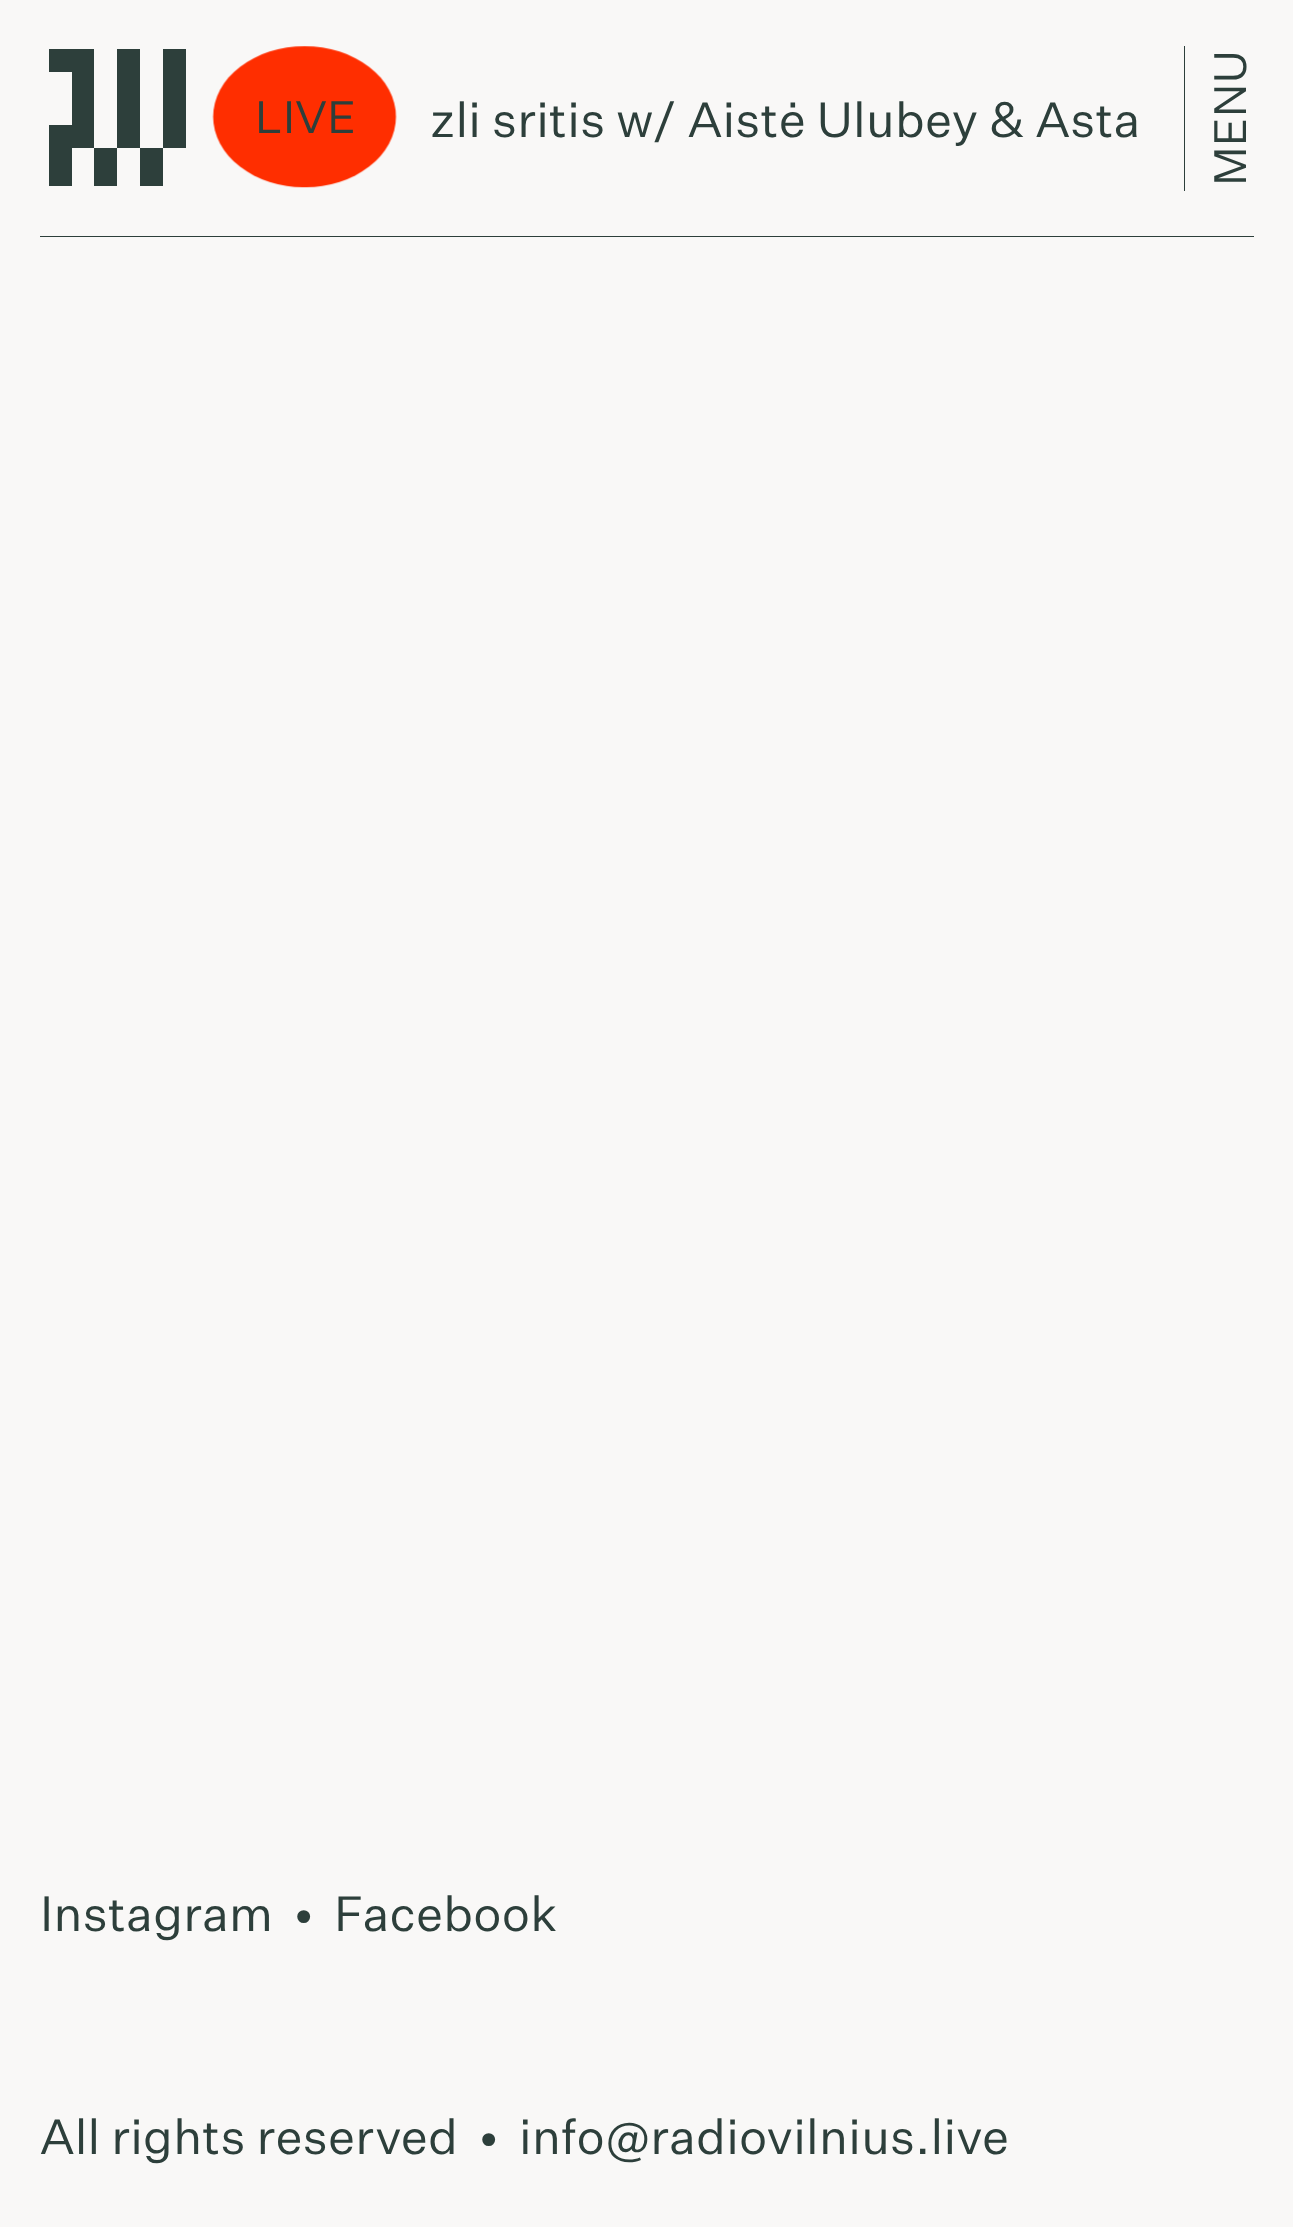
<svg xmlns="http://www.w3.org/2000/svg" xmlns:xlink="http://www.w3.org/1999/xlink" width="1293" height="2227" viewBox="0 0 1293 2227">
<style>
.cls-1{font:44.5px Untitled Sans;letter-spacing:0.25px;fill:#2d3f3b}
.cls-2{font:48.5px Untitled Sans;letter-spacing:0.25px;fill:#2d3f3b}
</style>
<rect width="100%" height="100%" fill="#f9f8f7"/>
<path fill="#2d3f3b" fill-rule="evenodd" d="M117 186H94V148H117ZM163 186H140V148H163ZM140 49V148H117V49Z"/>
<path fill="#2d3f3b" fill-rule="evenodd" d="M72 186H49V125H72V72H49V49H94V148H72ZM186 49V148H163V49Z"/>
<image xlink:href="image0.png" x="212" y="46" width="185" height="142"/>
<rect fill="#2d3f3b" x="1184" y="46" width="1" height="145"/>
<rect fill="#2d3f3b" x="40" y="236" width="1214" height="1"/>
<text class="cls-1" x="255" y="133">LIVE</text>
<text class="cls-2" x="430" y="137">zli sritis w/ Aistė Ulubey &amp; Asta</text>
<text class="cls-1" x="1246" y="186" transform="rotate(-90 1246 186)">MENU</text>
<text class="cls-2" x="40" y="1931">Instagram</text>
<text class="cls-2" x="293" y="1931">•</text>
<text class="cls-2" x="334" y="1931">Facebook</text>
<text class="cls-2" x="40" y="2154">All rights reserved</text>
<text class="cls-2" x="478" y="2154">•</text>
<text class="cls-2" x="519" y="2154">info@radiovilnius.live</text>
</svg>
